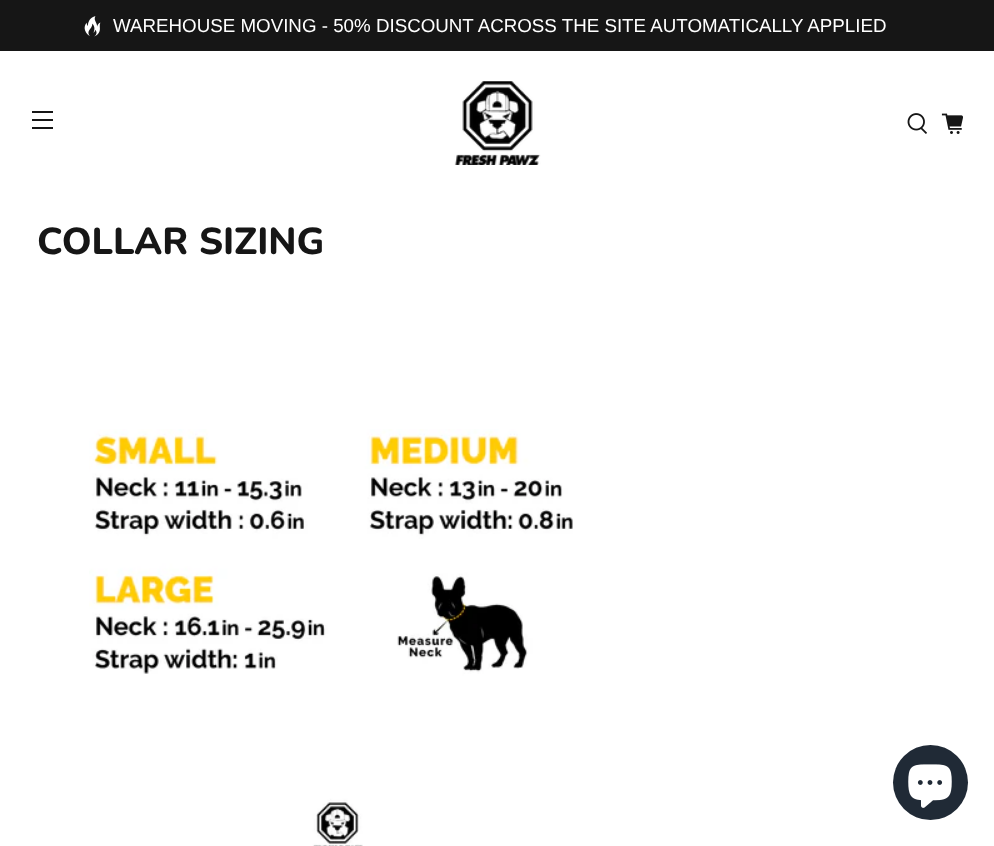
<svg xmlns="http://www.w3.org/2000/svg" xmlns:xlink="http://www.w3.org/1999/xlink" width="994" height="846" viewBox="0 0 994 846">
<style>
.cls-1{font:18.75px Liberation Sans;fill:#ffffff}
.cls-2{font:800 37.5px Nunito;fill:#161616}
</style>
<rect width="100%" height="100%" fill="#ffffff"/>
<rect fill="#161616" x="0" y="0" width="994" height="51"/>
<image xlink:href="image0.png" x="84" y="16" width="17" height="21"/>
<rect fill="#161616" x="32" y="111" width="21" height="2"/>
<rect fill="#161616" x="32" y="119" width="21" height="2"/>
<rect fill="#161616" x="32" y="127" width="21" height="2"/>
<image xlink:href="image1.png" x="454" y="81" width="87" height="84"/>
<image xlink:href="image2.png" x="907" y="113" width="20" height="21"/>
<image xlink:href="image3.png" x="941" y="113" width="22" height="21"/>
<image xlink:href="image4.png" x="89" y="429" width="484" height="417"/>
<circle fill="#202a36" cx="930.5" cy="782.5" r="37.5"/>
<image xlink:href="image5.png" x="908" y="764" width="44" height="44"/>
<text class="cls-1" x="113" y="32">WAREHOUSE MOVING - 50% DISCOUNT ACROSS THE SITE AUTOMATICALLY APPLIED</text>
<text class="cls-2" x="37" y="254">COLLAR SIZING</text>
</svg>
